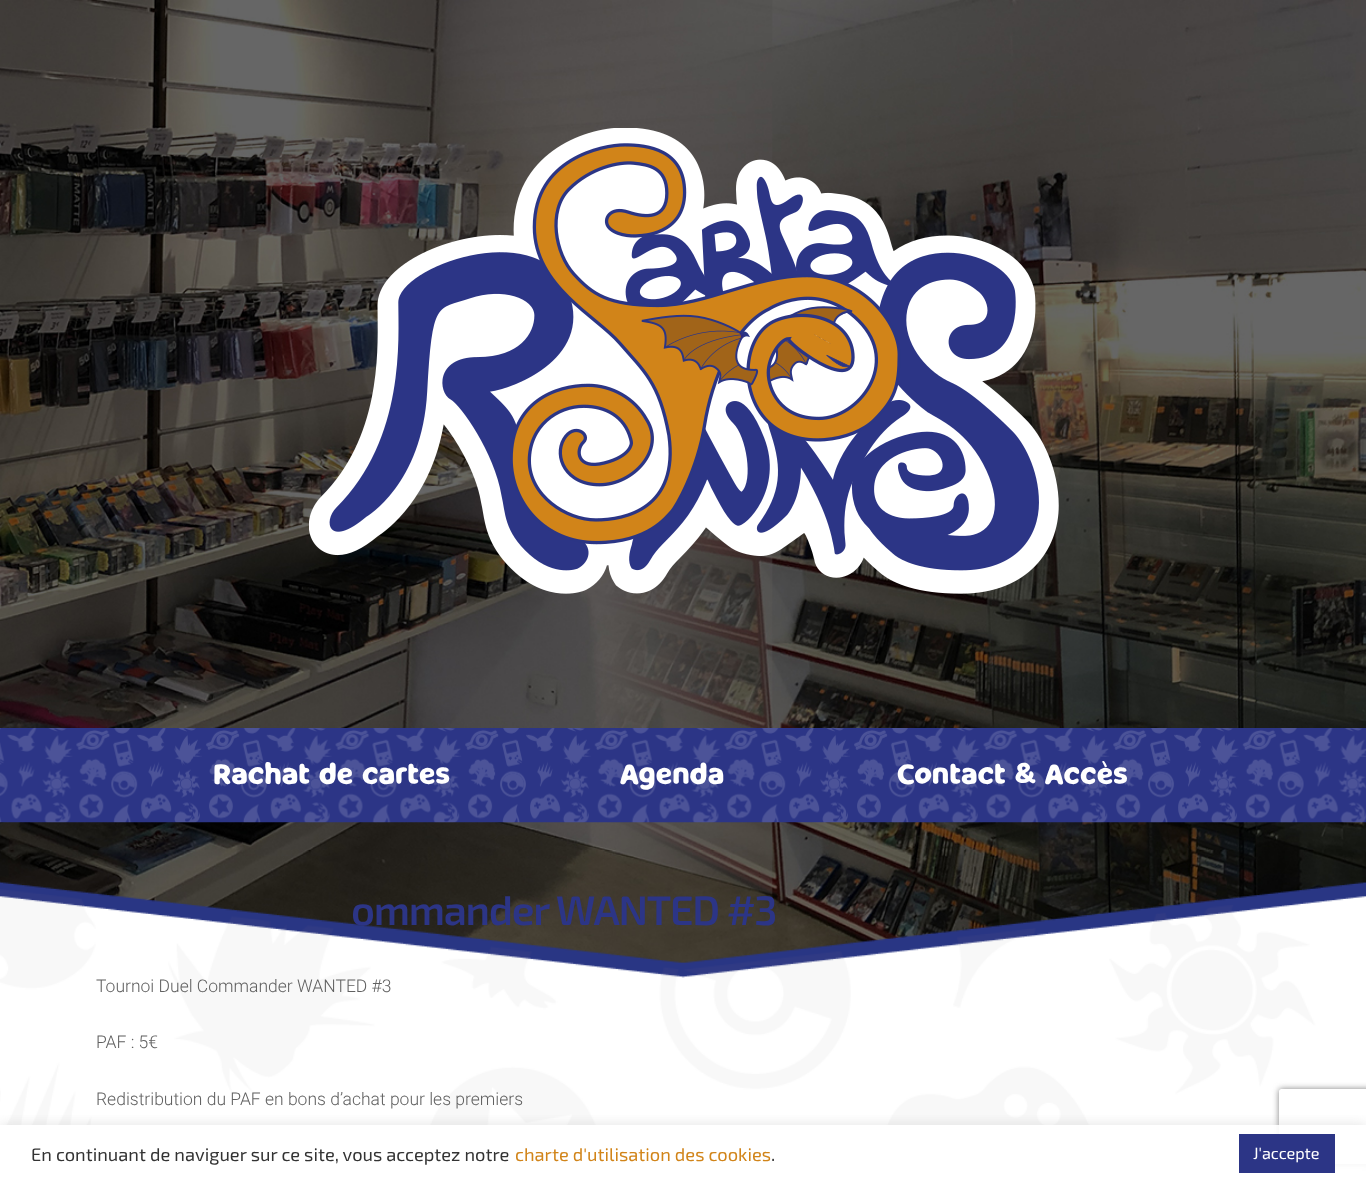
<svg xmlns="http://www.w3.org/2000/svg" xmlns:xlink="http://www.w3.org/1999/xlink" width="1366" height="1181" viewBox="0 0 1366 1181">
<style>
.cls-1{font:28.5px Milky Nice;fill:#ffffff}
.cls-2{font:600 41.25px 'Exo 2';letter-spacing:-1.25px;fill:#2c3586}
.cls-3{font:300 17.5px Roboto;fill:#616161}
.cls-4{font:18.3px 'Exo 2';fill:#333333}
.cls-5{font:18.3px 'Exo 2';fill:#d18419}
.cls-6{font:16.25px 'Exo 2';fill:#ffffff}
</style>
<defs>
<clipPath id="clip1"><path d="M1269 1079H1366V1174H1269ZM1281.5 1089H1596.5C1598 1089 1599 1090 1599 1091.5V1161.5C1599 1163 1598 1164 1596.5 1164H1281.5C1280 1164 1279 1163 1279 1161.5V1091.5C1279 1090 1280 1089 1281.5 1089Z" clip-rule="evenodd"/></clipPath>
<clipPath id="clip2"><rect x="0" y="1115" width="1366" height="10"/></clipPath>
</defs>
<rect width="100%" height="100%" fill="#ffffff"/>
<image xlink:href="image0.png" x="0" y="0" width="1366" height="963"/>
<image xlink:href="image1.png" x="309" y="128" width="750" height="466"/>
<image xlink:href="image2.png" x="0" y="728" width="1366" height="95"/>
<image xlink:href="image3.png" x="0" y="881" width="1366" height="300"/>
<g clip-path="url(#clip1)">
<rect fill="#808080" filter="blur(3px)" x="1279" y="1089" width="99" height="75" rx="2.5"/>
</g>
<g clip-path="url(#clip2)">
<rect fill="#acabab" fill-opacity="0.3" filter="blur(6px)" x="0" y="1124" width="1366" height="56"/>
</g>
<rect fill="#ffffff" fill-opacity="0.9" x="0" y="1125" width="1366" height="56"/>
<rect fill="#2c3586" x="1239" y="1134" width="96" height="39"/>
<text class="cls-1" x="213" y="784">Rachat de cartes</text>
<text class="cls-1" x="620" y="784">Agenda</text>
<text class="cls-1" x="897" y="784">Contact &amp; Accès</text>
<text class="cls-2" x="351" y="925">ommander WANTED #3</text>
<text class="cls-3" x="96" y="992">Tournoi Duel Commander WANTED #3</text>
<text class="cls-3" x="96" y="1048">PAF : 5€</text>
<text class="cls-3" x="96" y="1105">Redistribution du PAF en bons d’achat pour les premiers</text>
<text class="cls-4" x="31" y="1161">En continuant de naviguer sur ce site, vous acceptez notre</text>
<text class="cls-5" x="515" y="1161">charte d'utilisation des cookies</text>
<text class="cls-4" x="771" y="1161">.</text>
<text class="cls-6" x="1253" y="1159">J'accepte</text>
</svg>
